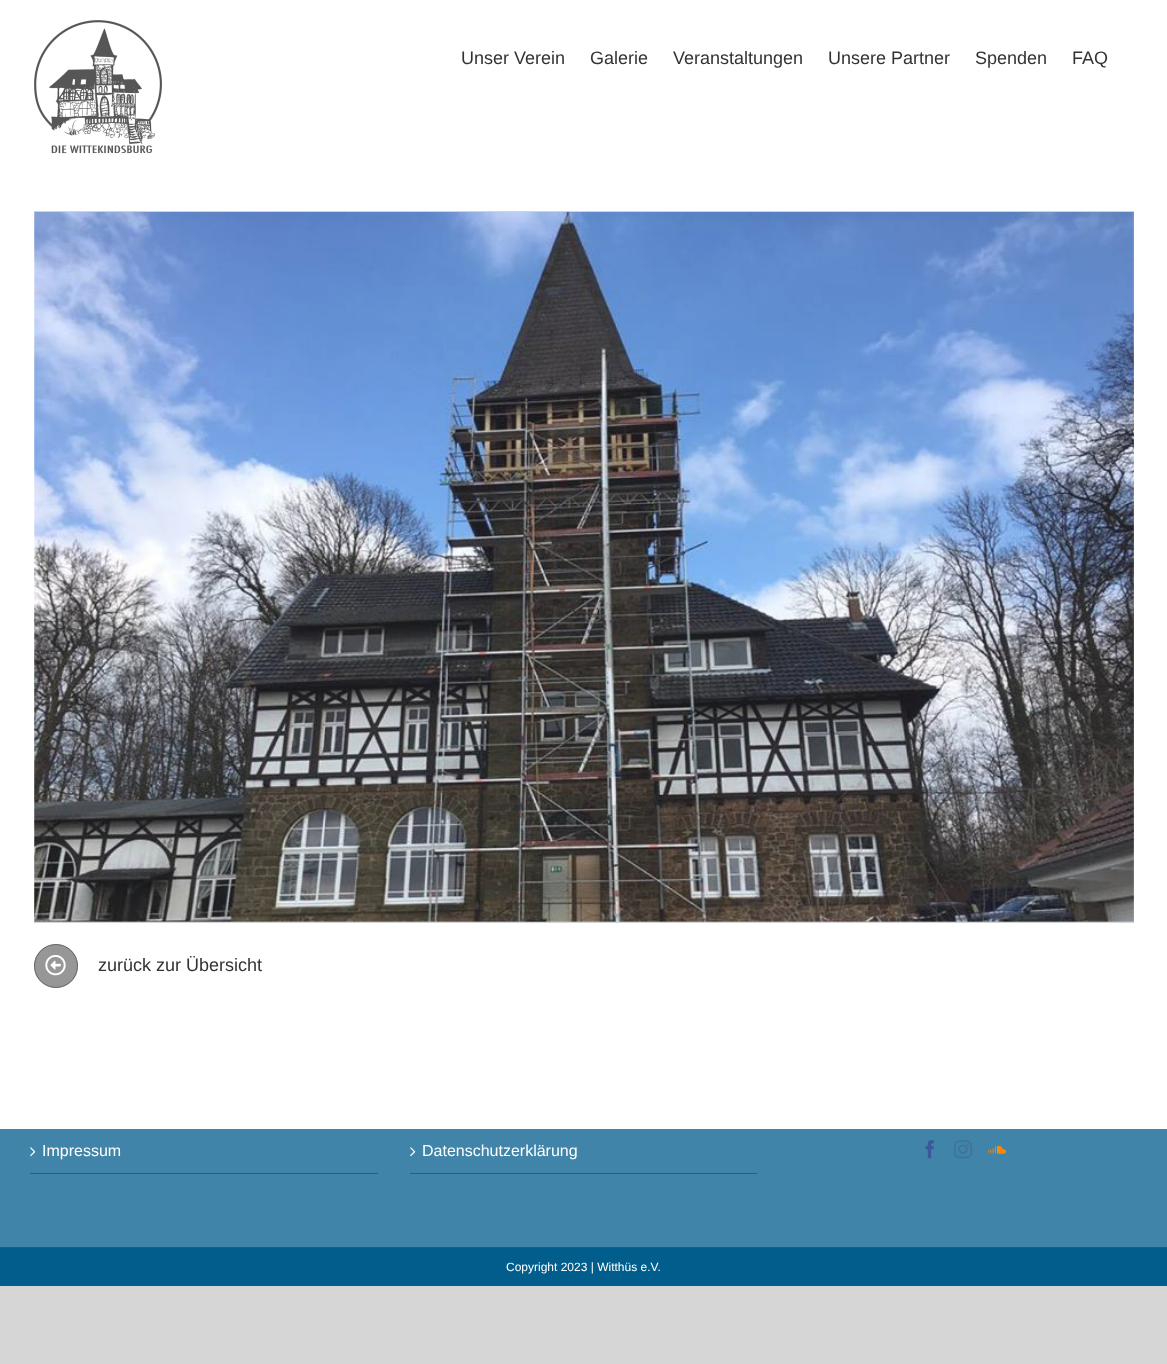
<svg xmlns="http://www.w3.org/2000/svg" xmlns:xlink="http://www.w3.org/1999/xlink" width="1167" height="1364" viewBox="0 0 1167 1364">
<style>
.cls-1{font:18px Liberation Sans;fill:#333333}
.cls-2{font:16px Liberation Sans;fill:#ffffff}
.cls-3{font:12px Liberation Sans;fill:#ffffff}
</style>
<rect width="100%" height="100%" fill="#d7d6d6"/>
<rect fill="#ffffff" x="0" y="0" width="1167" height="1129"/>
<image xlink:href="image0.png" x="34" y="20" width="128" height="134"/>
<rect fill="#d2d3d4" x="34" y="211" width="1100" height="1"/>
<rect fill="#d2d3d4" x="34" y="922" width="1100" height="1"/>
<image xlink:href="image1.png" x="34" y="212" width="1100" height="710"/>
<circle fill="#979797" cx="56" cy="966" r="22"/>
<circle fill="none" stroke="#333333" stroke-opacity="0.51" cx="56" cy="966" r="21.5"/>
<image xlink:href="image2.png" x="45" y="955" width="21" height="21"/>
<rect fill="#4084a9" x="0" y="1129" width="1167" height="118"/>
<rect fill="#505152" x="30" y="1173" width="348" height="1"/>
<image xlink:href="image3.png" x="30" y="1147" width="6" height="10"/>
<rect fill="#505152" x="410" y="1173" width="347" height="1"/>
<image xlink:href="image3.png" x="410" y="1147" width="6" height="10"/>
<image xlink:href="image4.png" x="925" y="1140" width="9" height="19"/>
<image xlink:href="image5.png" x="954" y="1140" width="18" height="19"/>
<image xlink:href="image6.png" x="988" y="1145" width="18" height="9"/>
<rect fill="#005d8c" x="0" y="1248" width="1167" height="38"/>
<rect fill="#4b4c4d" x="0" y="1247" width="1167" height="1"/>
<text class="cls-1" x="461" y="64">Unser Verein</text>
<text class="cls-1" x="590" y="64">Galerie</text>
<text class="cls-1" x="673" y="64">Veranstaltungen</text>
<text class="cls-1" x="828" y="64">Unsere Partner</text>
<text class="cls-1" x="975" y="64">Spenden</text>
<text class="cls-1" x="1072" y="64">FAQ</text>
<text class="cls-1" x="98" y="971">zurück zur Übersicht</text>
<text class="cls-2" x="42" y="1156">Impressum</text>
<text class="cls-2" x="422" y="1156">Datenschutzerklärung</text>
<text class="cls-3" x="506" y="1271">Copyright 2023 | Witthüs e.V.</text>
</svg>
